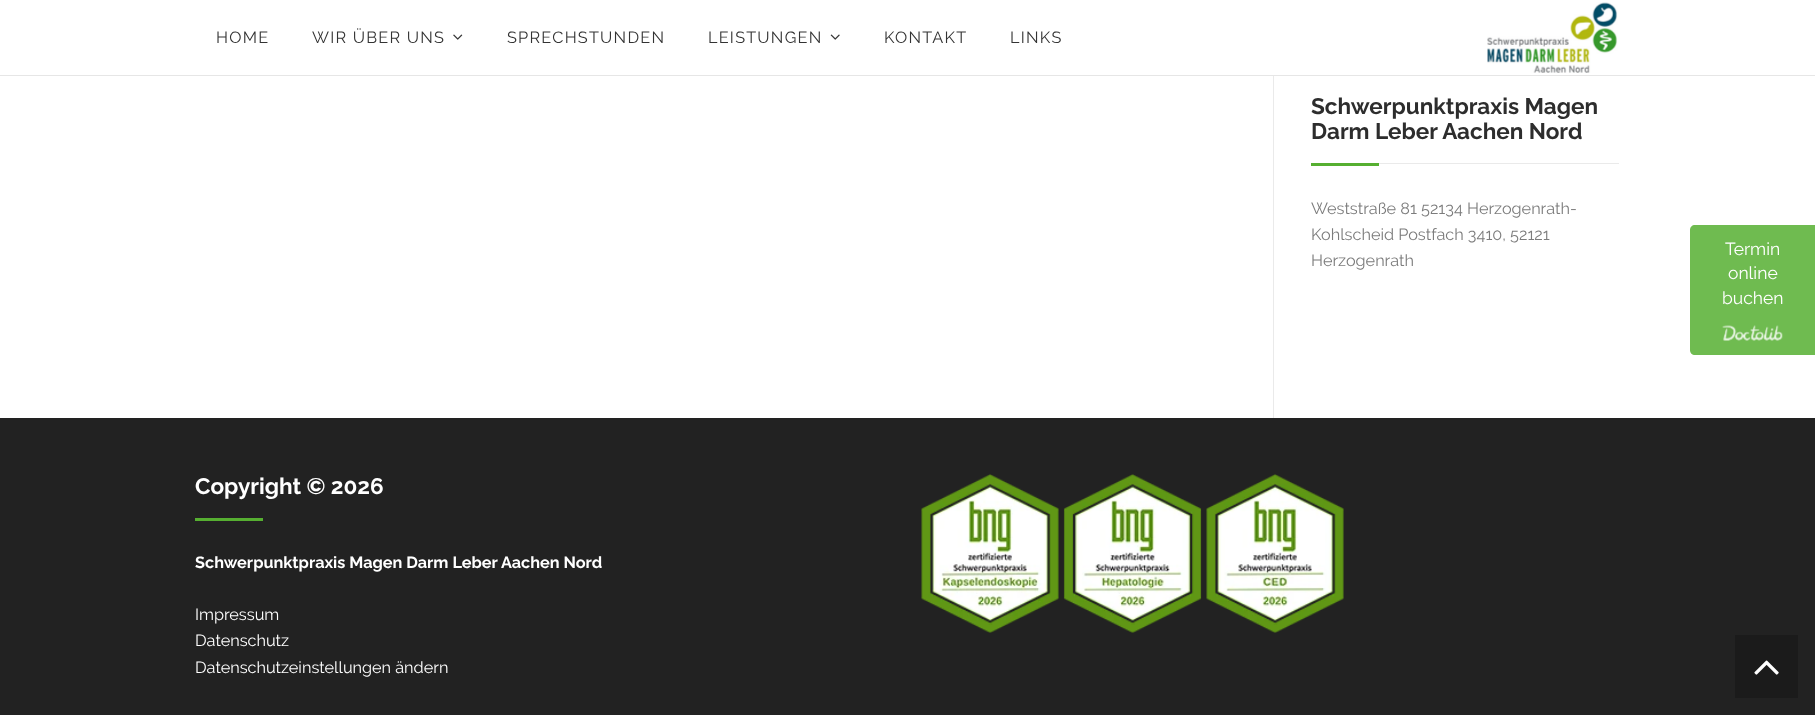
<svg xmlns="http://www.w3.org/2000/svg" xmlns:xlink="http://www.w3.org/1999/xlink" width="1815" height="715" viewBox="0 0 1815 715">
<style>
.cls-1{font:16.25px Raleway;letter-spacing:1.25px;fill:#333333}
.cls-2{font:bold 22.5px Raleway;fill:#2d2d2d}
.cls-3{font:16.25px Raleway;fill:#7c7c7c}
.cls-4{font:17.5px Raleway;fill:#ffffff}
.cls-5{font:bold 22.5px Raleway;fill:#ffffff}
.cls-6{font:bold 16.25px Raleway;fill:#ffffff}
.cls-7{font:16.25px Raleway;fill:#ffffff}
</style>
<rect width="100%" height="100%" fill="#222222"/>
<rect fill="#ffffff" x="0" y="0" width="1815" height="75"/>
<rect fill="#e6e6e6" x="0" y="75" width="1815" height="1"/>
<image xlink:href="image0.png" x="453" y="34" width="10" height="6"/>
<image xlink:href="image1.png" x="830" y="34" width="10" height="6"/>
<image xlink:href="image2.png" x="1487" y="2" width="131" height="71"/>
<rect fill="#ffffff" x="0" y="76" width="1815" height="342"/>
<rect fill="#eaeaea" x="1273" y="76" width="1" height="342"/>
<rect fill="#eaeaea" x="1379" y="163" width="240" height="1"/>
<rect fill="#56af31" x="1311" y="163" width="68" height="3"/>
<path fill="#6fbb50" d="M1695 225H1815V355H1695C1692 355 1690 353 1690 350V230C1690 227 1692 225 1695 225Z"/>
<image xlink:href="image3.png" x="1722" y="325" width="61" height="16"/>
<rect fill="#56af31" x="195" y="518" width="68" height="3"/>
<image xlink:href="image4.png" x="921" y="474" width="138" height="159"/>
<image xlink:href="image5.png" x="1063" y="474" width="139" height="159"/>
<image xlink:href="image6.png" x="1206" y="474" width="138" height="159"/>
<rect fill="#1b1b1b" x="1735" y="635" width="63" height="63"/>
<image xlink:href="image7.png" x="1754" y="660" width="25" height="15"/>
<text class="cls-1" x="216" y="43">HOME</text>
<text class="cls-1" x="312" y="43">WIR ÜBER UNS</text>
<text class="cls-1" x="507" y="43">SPRECHSTUNDEN</text>
<text class="cls-1" x="708" y="43">LEISTUNGEN</text>
<text class="cls-1" x="884" y="43">KONTAKT</text>
<text class="cls-1" x="1010" y="43">LINKS</text>
<text class="cls-2"><tspan x="1311" y="114">Schwerpunktpraxis Magen</tspan><tspan x="1311" y="139">Darm Leber Aachen Nord</tspan></text>
<text class="cls-3"><tspan x="1311" y="214">Weststraße 81 52134 Herzogenrath-</tspan><tspan x="1311" y="240">Kohlscheid Postfach 3410, 52121</tspan><tspan x="1311" y="266">Herzogenrath</tspan></text>
<text class="cls-4" x="1725" y="255">Termin</text>
<text class="cls-4" x="1728" y="279">online</text>
<text class="cls-4" x="1722" y="304">buchen</text>
<text class="cls-5" x="195" y="494">Copyright © 2026</text>
<text class="cls-6" x="195" y="568">Schwerpunktpraxis Magen Darm Leber Aachen Nord</text>
<text class="cls-7"><tspan x="195" y="620">Impressum</tspan><tspan x="195" y="646">Datenschutz</tspan><tspan x="195" y="673">Datenschutzeinstellungen ändern</tspan></text>
</svg>
